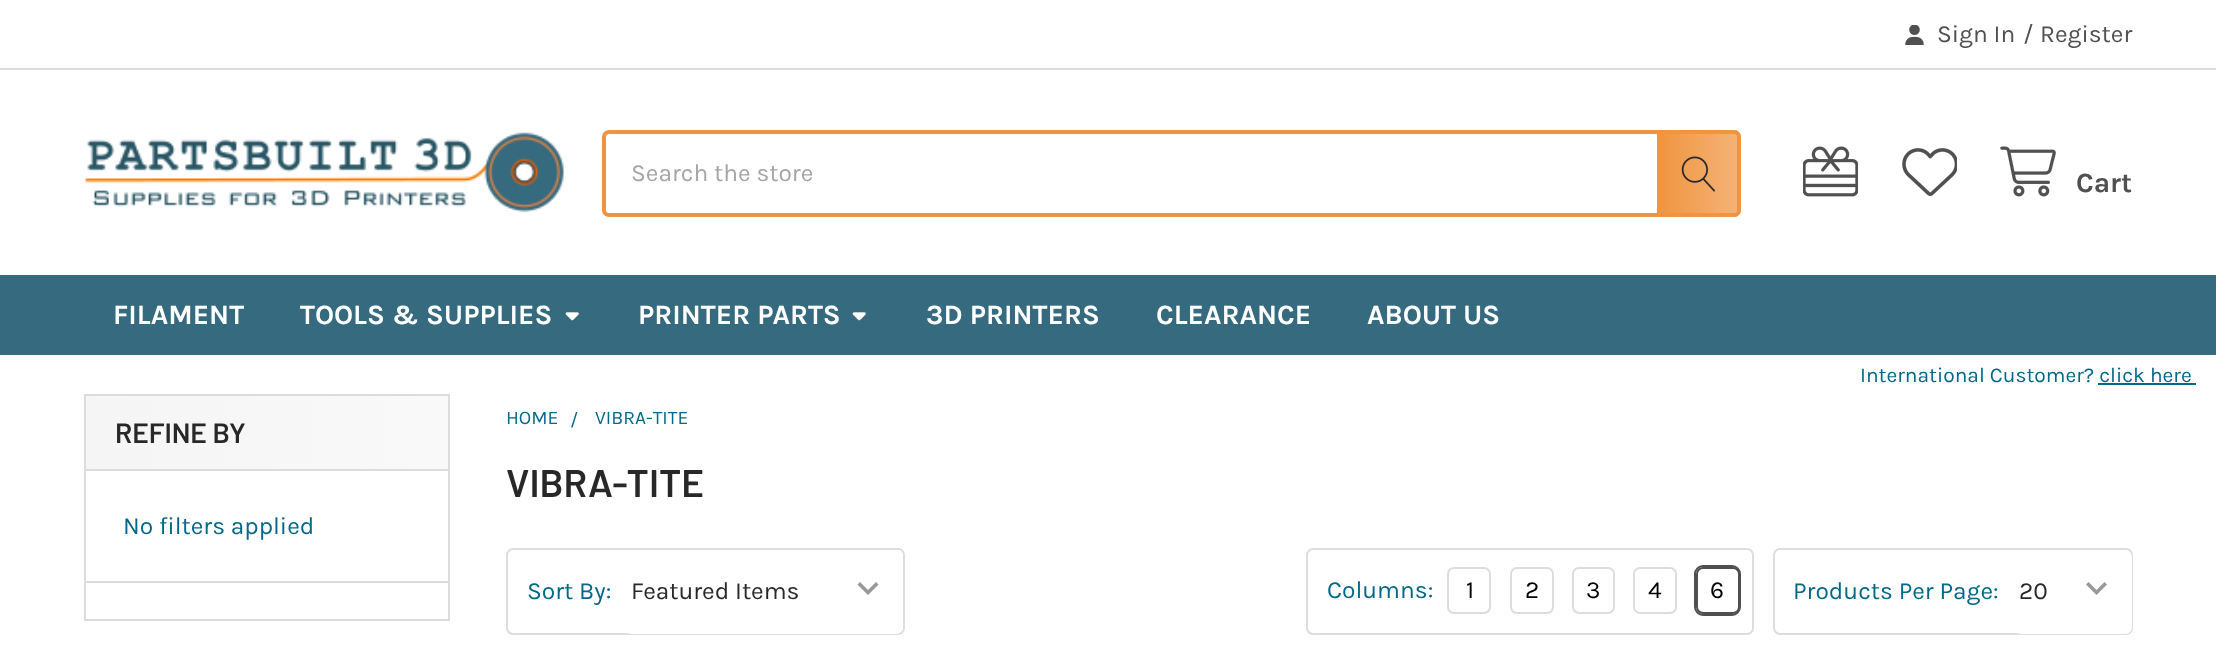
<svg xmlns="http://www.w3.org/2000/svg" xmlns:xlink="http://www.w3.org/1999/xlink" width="2216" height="660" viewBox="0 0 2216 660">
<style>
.cls-1{font:24.5px Karla;fill:#505050}
.cls-2{font:24.5px Karla;fill:#a5a5a5}
.cls-3{font:bold 28px Karla;fill:#505050}
.cls-4{font:bold 28px Karla;fill:#ffffff}
.cls-5{font:21px Karla;fill:#036887}
.cls-6{font:600 28px Barlow;fill:#282828}
.cls-7{font:24.5px Karla;fill:#036887}
.cls-8{font:19.25px Karla;fill:#036887}
.cls-9{font:600 38.5px Barlow;fill:#282828}
.cls-10{font:24.5px Karla;fill:#282828}
.cls-11{font:24.5px Karla;fill:#000000}
</style>
<defs>
<linearGradient id="g1" gradientUnits="userSpaceOnUse" x1="1657" y1="173" x2="1741" y2="173"><stop offset="0" stop-color="#f0943f"/><stop offset="1" stop-color="#f0943f" stop-opacity="0.7"/></linearGradient>
<linearGradient id="g2" gradientUnits="userSpaceOnUse" x1="86" y1="432" x2="448" y2="432"><stop offset="0" stop-color="#f5f5f5"/><stop offset="1" stop-color="#f9f9f9"/></linearGradient>
</defs>
<rect width="100%" height="100%" fill="#ffffff"/>
<rect fill="#dcdcdc" x="0" y="68" width="2216" height="2"/>
<image xlink:href="image0.png" x="1905" y="25" width="19" height="20"/>
<image xlink:href="image1.png" x="84" y="132" width="480" height="81"/>
<rect fill="none" stroke="#f0943f" stroke-width="4" x="604" y="132" width="1135" height="83" rx="5"/>
<path fill="url(#g1)" d="M1657 130H1734C1738 130 1741 133 1741 137V210C1741 214 1738 217 1734 217H1657Z"/>
<image xlink:href="image2.png" x="1681" y="156" width="34" height="36"/>
<image xlink:href="image3.png" x="1803" y="146" width="55" height="51"/>
<image xlink:href="image4.png" x="1902" y="148" width="55" height="48"/>
<image xlink:href="image5.png" x="2000" y="146" width="56" height="51"/>
<rect fill="#366a7e" x="0" y="275" width="2216" height="80"/>
<image xlink:href="image6.png" x="565" y="312" width="14" height="9"/>
<image xlink:href="image6.png" x="852" y="312" width="14" height="9"/>
<rect fill="#036887" x="2098" y="383" width="98" height="2"/>
<rect fill="none" stroke="#dcdcdc" stroke-width="2" x="85" y="395" width="364" height="225"/>
<rect fill="#dcdcdc" x="86" y="581" width="362" height="2"/>
<rect fill="url(#g2)" x="86" y="396" width="362" height="73"/>
<rect fill="#dcdcdc" x="86" y="469" width="362" height="2"/>
<rect fill="none" stroke="#dddddd" stroke-width="2" x="507" y="549" width="397" height="85" rx="6"/>
<rect fill="#ffffff" x="625" y="550" width="278" height="84" rx="7"/>
<path fill="#999999" d="M876 582L868 590L860 582L857.5 584.5L868 595L878.5 584.5Z"/>
<rect fill="none" stroke="#dddddd" stroke-width="2" x="1307" y="549" width="446" height="85" rx="6"/>
<rect fill="none" stroke="#dddddd" stroke-width="2" x="1448" y="568" width="42" height="45" rx="6"/>
<rect fill="none" stroke="#dddddd" stroke-width="2" x="1511" y="568" width="42" height="45" rx="6"/>
<rect fill="none" stroke="#dddddd" stroke-width="2" x="1573" y="568" width="41" height="45" rx="6"/>
<rect fill="none" stroke="#dddddd" stroke-width="2" x="1634" y="568" width="42" height="45" rx="6"/>
<rect fill="none" stroke="#4f4f4f" stroke-width="2" x="1695" y="566" width="45" height="49" rx="8"/>
<rect fill="none" stroke="#4f4f4f" stroke-width="2" x="1697" y="568" width="42" height="45" rx="6"/>
<rect fill="none" stroke="#dddddd" stroke-width="2" x="1774" y="549" width="358" height="85" rx="6"/>
<rect fill="#ffffff" x="2014" y="550" width="118" height="84" rx="7"/>
<path fill="#999999" d="M2104.5 582L2096.5 590L2088.5 582L2086 584.5L2096.5 595L2107 584.5Z"/>
<text class="cls-1" x="1937" y="42">Sign In</text>
<text class="cls-1" x="2023" y="42">/</text>
<text class="cls-1" x="2040" y="42">Register</text>
<text class="cls-2" x="631" y="181">Search the store</text>
<text class="cls-3" x="2076" y="192">Cart</text>
<text class="cls-4" x="113" y="324">FILAMENT</text>
<text class="cls-4" x="300" y="324">TOOLS &amp; SUPPLIES</text>
<text class="cls-4" x="638" y="324">PRINTER PARTS</text>
<text class="cls-4" x="926" y="324">3D PRINTERS</text>
<text class="cls-4" x="1156" y="324">CLEARANCE</text>
<text class="cls-4" x="1367" y="324">ABOUT US</text>
<text class="cls-5" x="1860" y="382">International Customer? click here</text>
<text class="cls-6" x="115" y="443">REFINE BY</text>
<text class="cls-7" x="123" y="534">No filters applied</text>
<text class="cls-8" x="506" y="424">HOME</text>
<text class="cls-8" x="570" y="426">/</text>
<text class="cls-8" x="595" y="424">VIBRA-TITE</text>
<text class="cls-9" x="506" y="497">VIBRA-TITE</text>
<text class="cls-7" x="527" y="599">Sort By:</text>
<text class="cls-10" x="631" y="599">Featured Items</text>
<text class="cls-7" x="1327" y="598">Columns:</text>
<text class="cls-11" x="1466" y="598">1</text>
<text class="cls-11" x="1525" y="598">2</text>
<text class="cls-11" x="1586" y="598">3</text>
<text class="cls-11" x="1648" y="598">4</text>
<text class="cls-11" x="1710" y="598">6</text>
<text class="cls-7" x="1793" y="599">Products Per Page:</text>
<text class="cls-10" x="2019" y="599">20</text>
</svg>
